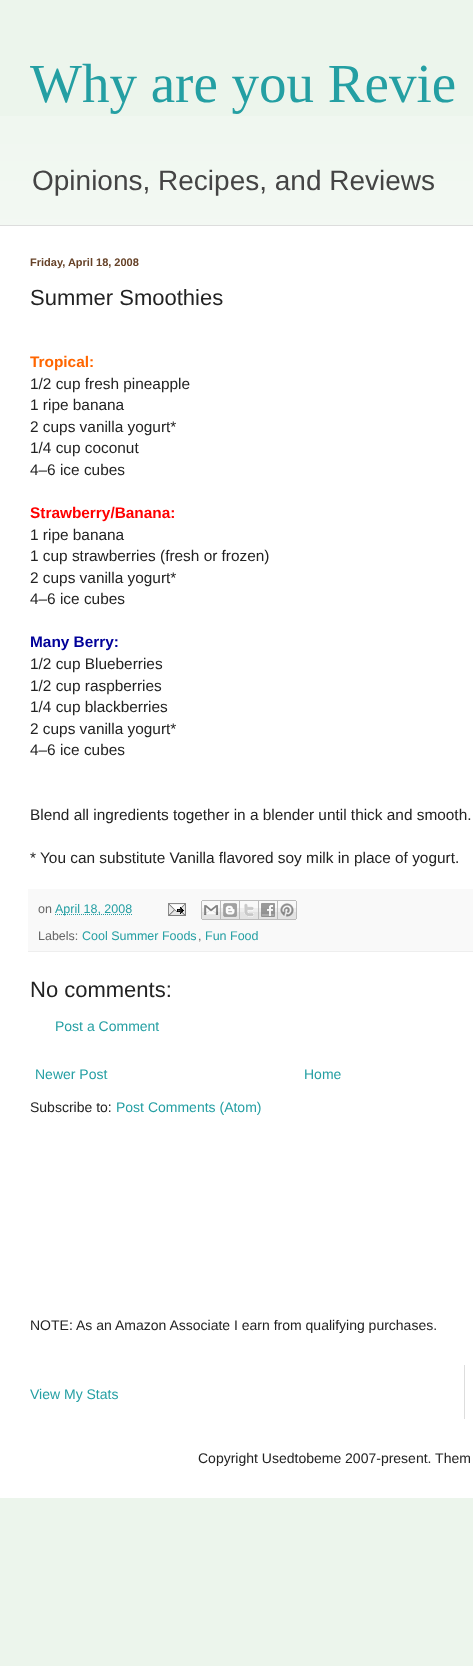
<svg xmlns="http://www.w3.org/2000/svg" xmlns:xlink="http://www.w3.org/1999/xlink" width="473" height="1666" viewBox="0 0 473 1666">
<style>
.cls-1{font:55px Liberation Serif;fill:#249fa3}
.cls-2{font:28px Liberation Sans;fill:#444444}
.cls-3{font:bold 11px Liberation Sans;fill:#664228}
.cls-4{font:22px Liberation Sans;fill:#222222}
.cls-5{font:bold 15.4px Liberation Sans;fill:#ff6600}
.cls-6{font:15.4px Liberation Sans;fill:#222222}
.cls-7{font:bold 15.4px Liberation Sans;fill:#ff0000}
.cls-8{font:bold 15.4px Liberation Sans;fill:#000099}
.cls-9{font:12.5px Liberation Sans;fill:#666666}
.cls-10{font:12.5px Liberation Sans;fill:#249fa3}
.cls-11{font:14px Liberation Sans;fill:#249fa3}
.cls-12{font:14px Liberation Sans;fill:#222222}
</style>
<rect width="100%" height="100%" fill="#ecf5ec"/>
<rect fill="#ffffff" x="0" y="226" width="473" height="1272"/>
<rect fill="#dddddd" x="0" y="225" width="473" height="1"/>
<rect fill="#f9f9f9" x="28" y="889" width="445" height="62"/>
<rect fill="#eeeeee" x="28" y="951" width="445" height="1"/>
<path fill="none" stroke="#249fa3" stroke-dasharray="1 1" d="M55 914.5H132.5"/>
<image xlink:href="image0.png" x="168" y="903" width="18" height="13"/>
<image xlink:href="image1.png" x="201" y="900" width="20" height="20"/>
<image xlink:href="image2.png" x="221" y="900" width="19" height="20"/>
<image xlink:href="image3.png" x="240" y="900" width="19" height="20"/>
<image xlink:href="image4.png" x="259" y="900" width="19" height="20"/>
<image xlink:href="image5.png" x="278" y="900" width="19" height="20"/>
<rect fill="#dddddd" x="464" y="1365" width="1" height="54"/>
<image xlink:href="image6.png" x="0" y="116" width="473" height="109"/>
<text class="cls-1" x="30" y="102">Why are you Revie</text>
<text class="cls-2" x="32" y="190">Opinions, Recipes, and Reviews</text>
<text class="cls-3" x="30" y="266">Friday, April 18, 2008</text>
<text class="cls-4" x="30" y="305">Summer Smoothies</text>
<text class="cls-5" x="30" y="367">Tropical:</text>
<text class="cls-6"><tspan x="30" y="389">1/2 cup fresh pineapple</tspan><tspan x="30" y="410">1 ripe banana</tspan><tspan x="30" y="432">2 cups vanilla yogurt*</tspan><tspan x="30" y="453">1/4 cup coconut</tspan><tspan x="30" y="475">4–6 ice cubes</tspan></text>
<text class="cls-7" x="30" y="518">Strawberry/Banana:</text>
<text class="cls-6"><tspan x="30" y="540">1 ripe banana</tspan><tspan x="30" y="561">1 cup strawberries (fresh or frozen)</tspan><tspan x="30" y="583">2 cups vanilla yogurt*</tspan><tspan x="30" y="604">4–6 ice cubes</tspan></text>
<text class="cls-8" x="30" y="647">Many Berry:</text>
<text class="cls-6"><tspan x="30" y="669">1/2 cup Blueberries</tspan><tspan x="30" y="691">1/2 cup raspberries</tspan><tspan x="30" y="712">1/4 cup blackberries</tspan><tspan x="30" y="734">2 cups vanilla yogurt*</tspan><tspan x="30" y="755">4–6 ice cubes</tspan></text>
<text class="cls-6" x="30" y="820">Blend all ingredients together in a blender until thick and smooth.</text>
<text class="cls-6" x="30" y="863">* You can substitute Vanilla flavored soy milk in place of yogurt.</text>
<text class="cls-9" x="38" y="913">on</text>
<text class="cls-10" x="55" y="913">April 18, 2008</text>
<text class="cls-9" x="38" y="940">Labels:</text>
<text class="cls-10" x="82" y="940">Cool Summer Foods</text>
<text class="cls-9" x="198" y="940">,</text>
<text class="cls-10" x="205" y="940">Fun Food</text>
<text class="cls-4" x="30" y="997">No comments:</text>
<text class="cls-11" x="55" y="1031">Post a Comment</text>
<text class="cls-11" x="35" y="1079">Newer Post</text>
<text class="cls-11" x="304" y="1079">Home</text>
<text class="cls-12" x="30" y="1112">Subscribe to:</text>
<text class="cls-11" x="116" y="1112">Post Comments (Atom)</text>
<text class="cls-12" x="30" y="1330">NOTE:</text>
<text class="cls-12" x="76" y="1330">As an Amazon Associate I earn from qualifying purchases.</text>
<text class="cls-11" x="30" y="1399">View My Stats</text>
<text class="cls-12" x="198" y="1463">Copyright Usedtobeme 2007-present. Them</text>
</svg>
